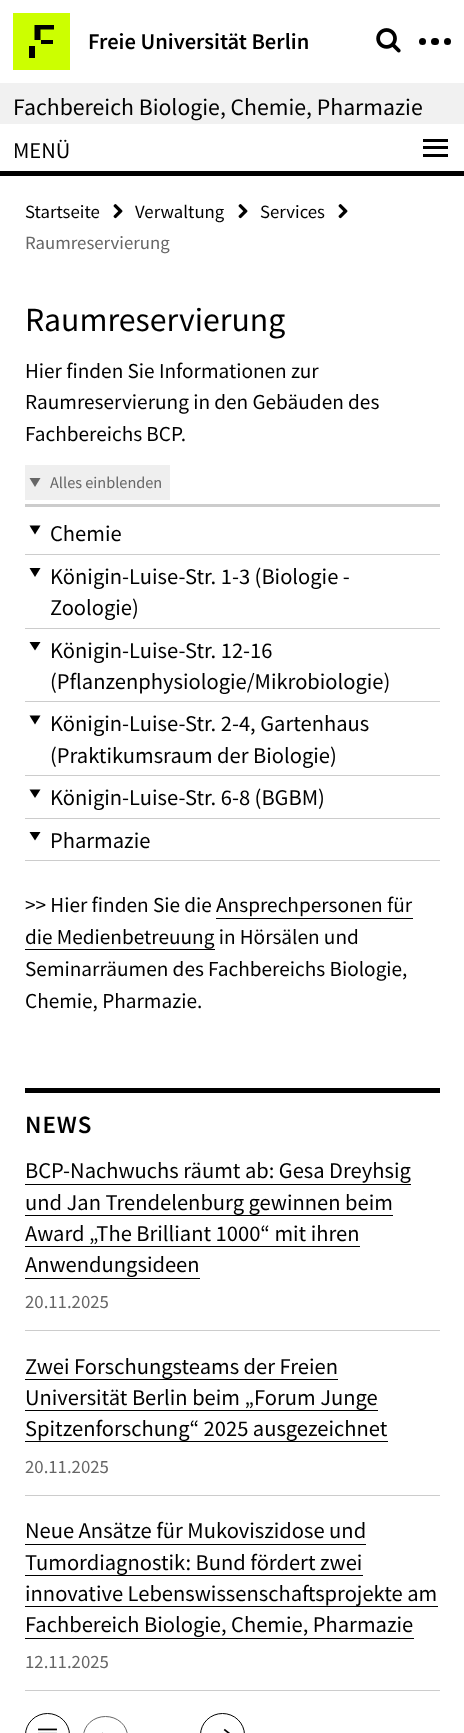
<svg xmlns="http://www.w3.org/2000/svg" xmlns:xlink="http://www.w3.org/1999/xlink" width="464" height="1733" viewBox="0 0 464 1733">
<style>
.cls-1{font:600 22.5px Source Sans Pro;fill:#000000}
.cls-2{font:23.75px Source Sans Pro;fill:#000000}
.cls-3{font:22.5px Source Sans Pro;fill:#000000}
.cls-4{font:18.75px Source Sans Pro;fill:#000000}
.cls-5{font:18.75px Source Sans Pro;fill:#666666}
.cls-6{font:33.75px Source Sans Pro;fill:#000000}
.cls-7{font:21.25px Source Sans Pro;fill:#000000}
.cls-8{font:16.25px Source Sans Pro;fill:#666666}
.cls-9{font:600 25px Source Sans Pro;letter-spacing:1px;fill:#000000}
</style>
<rect width="100%" height="100%" fill="#ffffff"/>
<rect fill="#ccff00" x="13" y="13" width="57" height="57"/>
<path fill="#000000" d="M34.5 25H54V29.5H40.5V40H34.5Z"/>
<rect fill="#000000" x="41" y="40" width="12" height="4"/>
<rect fill="#000000" x="29" y="46" width="6" height="12"/>
<image xlink:href="image0.png" x="376" y="28" width="25" height="25"/>
<circle fill="#000000" cx="422.5" cy="41.5" r="3.5"/>
<rect fill="#000000" x="431" y="38" width="8" height="7" rx="3.5"/>
<circle fill="#000000" cx="447.5" cy="41.5" r="3.5"/>
<rect fill="#f1f1f1" x="0" y="83" width="464" height="41"/>
<rect fill="#000000" x="0" y="171" width="464" height="5"/>
<rect fill="#000000" x="423" y="139" width="25" height="3"/>
<rect fill="#000000" x="423" y="146" width="25" height="3"/>
<rect fill="#000000" x="423" y="154" width="25" height="3"/>
<image xlink:href="image1.png" x="113" y="204" width="10" height="15"/>
<image xlink:href="image1.png" x="238" y="204" width="10" height="15"/>
<image xlink:href="image1.png" x="338" y="204" width="10" height="15"/>
<rect fill="#cccccc" x="25" y="504" width="415" height="3"/>
<rect fill="#efefef" x="25" y="465" width="145" height="35"/>
<path fill="#666666" d="M40.5 478H29.5L35 487Z"/>
<rect fill="#cccccc" x="25" y="554" width="415" height="1"/>
<path fill="#000000" d="M40.5 525.5H29.5L35 534.5Z"/>
<rect fill="#cccccc" x="25" y="628" width="415" height="1"/>
<path fill="#000000" d="M40.5 568H29.5L35 577Z"/>
<rect fill="#cccccc" x="25" y="701" width="415" height="1"/>
<path fill="#000000" d="M40.5 642H29.5L35 650.5Z"/>
<rect fill="#cccccc" x="25" y="775" width="415" height="1"/>
<path fill="#000000" d="M40.5 715.5H29.5L35 724.5Z"/>
<rect fill="#cccccc" x="25" y="818" width="415" height="1"/>
<path fill="#000000" d="M40.5 789.5H29.5L35 798Z"/>
<rect fill="#cccccc" x="25" y="860" width="415" height="1"/>
<path fill="#000000" d="M40.5 832H29.5L35 840.5Z"/>
<rect fill="#000000" x="216" y="918" width="197" height="1"/>
<rect fill="#000000" x="25" y="949" width="190" height="1"/>
<rect fill="#000000" x="25" y="1088" width="415" height="5"/>
<rect fill="#cccccc" x="25" y="1330" width="415" height="1"/>
<rect fill="#000000" x="25" y="1184" width="386" height="1"/>
<rect fill="#000000" x="25" y="1215" width="368" height="1"/>
<rect fill="#000000" x="25" y="1246" width="335" height="1"/>
<rect fill="#000000" x="25" y="1278" width="175" height="1"/>
<rect fill="#cccccc" x="25" y="1495" width="415" height="1"/>
<rect fill="#000000" x="25" y="1379" width="313" height="1"/>
<rect fill="#000000" x="25" y="1410" width="353" height="1"/>
<rect fill="#000000" x="25" y="1441" width="363" height="1"/>
<rect fill="#cccccc" x="25" y="1690" width="415" height="1"/>
<rect fill="#000000" x="25" y="1544" width="341" height="1"/>
<rect fill="#000000" x="25" y="1575" width="338" height="1"/>
<rect fill="#000000" x="25" y="1606" width="413" height="1"/>
<rect fill="#000000" x="25" y="1638" width="389" height="1"/>
<rect fill="none" stroke="#000000" x="25.5" y="1713.5" width="44" height="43" rx="22"/>
<image xlink:href="image2.png" x="38" y="1728" width="19" height="5"/>
<rect fill="none" stroke="#666666" x="83.5" y="1716.5" width="44" height="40" rx="22"/>
<rect fill="#dadada" x="102" y="1732" width="1" height="1"/>
<rect fill="none" stroke="#000000" x="200.5" y="1713.5" width="44" height="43" rx="22"/>
<image xlink:href="image3.png" x="223" y="1728" width="7" height="5"/>
<text class="cls-1" x="88" y="49">Freie Universität Berlin</text>
<text class="cls-2" x="13" y="115">Fachbereich Biologie, Chemie, Pharmazie</text>
<text class="cls-3" x="13" y="158">MENÜ</text>
<text class="cls-4" x="25" y="218">Startseite</text>
<text class="cls-4" x="135" y="218">Verwaltung</text>
<text class="cls-4" x="260" y="218">Services</text>
<text class="cls-5" x="25" y="249">Raumreservierung</text>
<text class="cls-6" x="25" y="331">Raumreservierung</text>
<text class="cls-7"><tspan x="25" y="378">Hier finden Sie Informationen zur</tspan><tspan x="25" y="409">Raumreservierung in den Gebäuden des</tspan><tspan x="25" y="441">Fachbereichs BCP.</tspan></text>
<text class="cls-8" x="50" y="488">Alles einblenden</text>
<text class="cls-3"><tspan x="50" y="541">Chemie</tspan><tspan x="50" y="584">Königin-Luise-Str. 1-3 (Biologie -</tspan><tspan x="50" y="615">Zoologie)</tspan><tspan x="50" y="658">Königin-Luise-Str. 12-16</tspan><tspan x="50" y="689">(Pflanzenphysiologie/Mikrobiologie)</tspan><tspan x="50" y="731">Königin-Luise-Str. 2-4, Gartenhaus</tspan><tspan x="50" y="763">(Praktikumsraum der Biologie)</tspan><tspan x="50" y="805">Königin-Luise-Str. 6-8 (BGBM)</tspan><tspan x="50" y="848">Pharmazie</tspan></text>
<text class="cls-7"><tspan x="25" y="912">&gt;&gt; Hier finden Sie die Ansprechpersonen für</tspan><tspan x="25" y="944">die Medienbetreuung in Hörsälen und</tspan><tspan x="25" y="976">Seminarräumen des Fachbereichs Biologie,</tspan><tspan x="25" y="1008">Chemie, Pharmazie.</tspan></text>
<text class="cls-9" x="25" y="1133">NEWS</text>
<text class="cls-3"><tspan x="25" y="1178">BCP-Nachwuchs räumt ab: Gesa Dreyhsig</tspan><tspan x="25" y="1210">und Jan Trendelenburg gewinnen beim</tspan><tspan x="25" y="1241">Award „The Brilliant 1000“ mit ihren</tspan><tspan x="25" y="1272">Anwendungsideen</tspan></text>
<text class="cls-5" x="25" y="1308">20.11.2025</text>
<text class="cls-3"><tspan x="25" y="1374">Zwei Forschungsteams der Freien</tspan><tspan x="25" y="1405">Universität Berlin beim „Forum Junge</tspan><tspan x="25" y="1436">Spitzenforschung“ 2025 ausgezeichnet</tspan></text>
<text class="cls-5" x="25" y="1473">20.11.2025</text>
<text class="cls-3"><tspan x="25" y="1538">Neue Ansätze für Mukoviszidose und</tspan><tspan x="25" y="1570">Tumordiagnostik: Bund fördert zwei</tspan><tspan x="25" y="1601">innovative Lebenswissenschaftsprojekte am</tspan><tspan x="25" y="1632">Fachbereich Biologie, Chemie, Pharmazie</tspan></text>
<text class="cls-5" x="25" y="1668">12.11.2025</text>
</svg>
